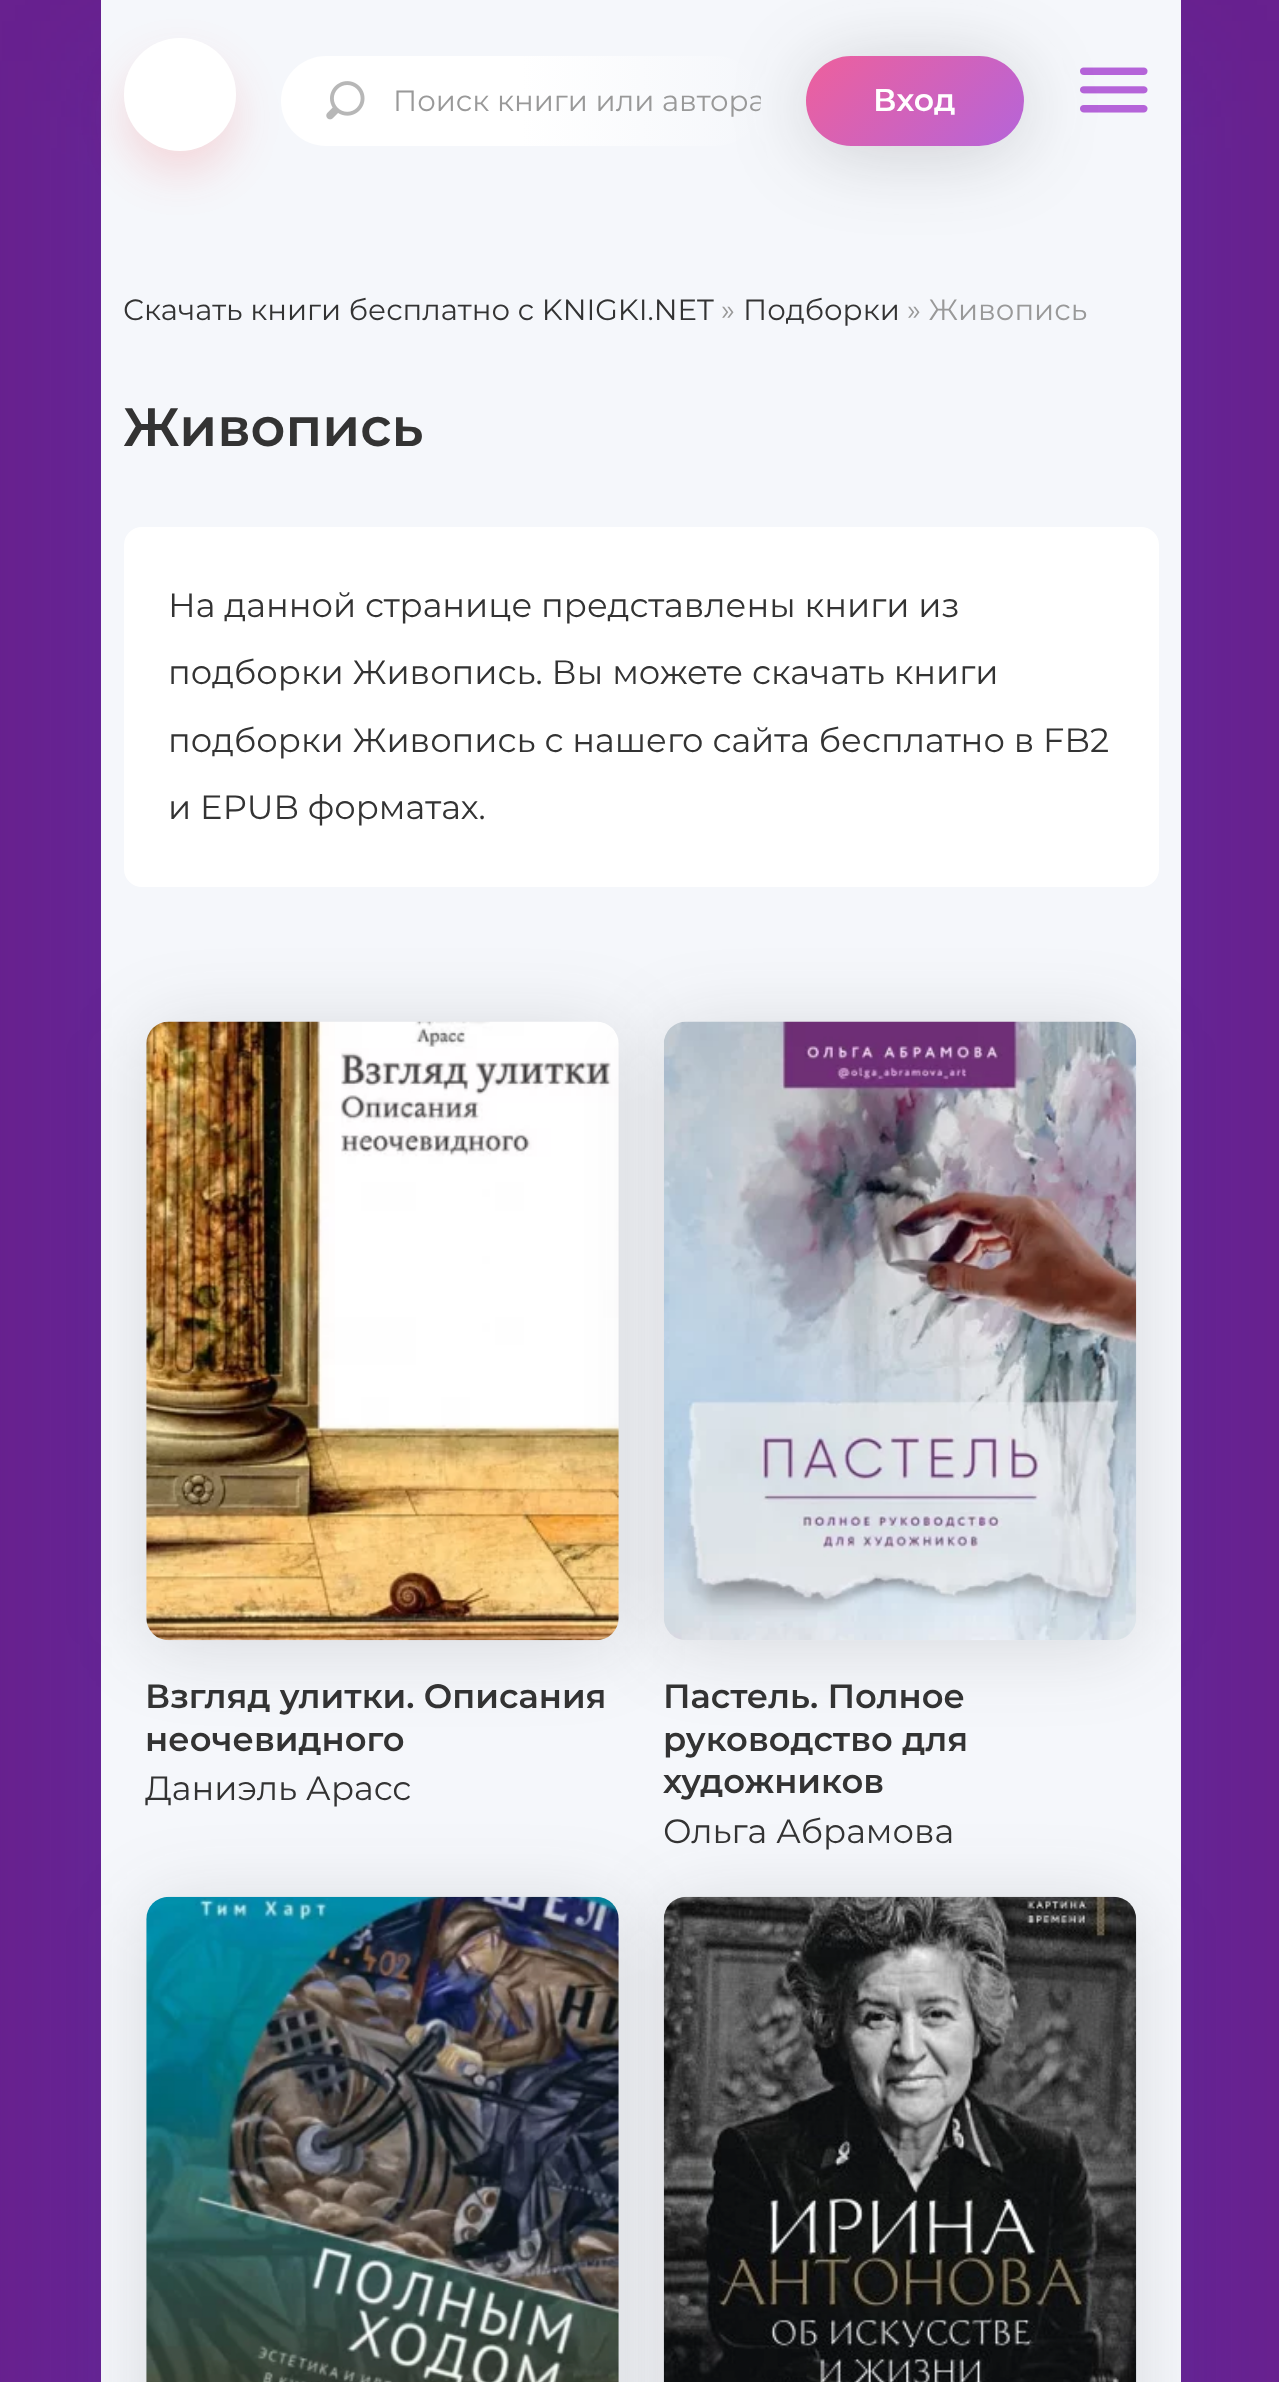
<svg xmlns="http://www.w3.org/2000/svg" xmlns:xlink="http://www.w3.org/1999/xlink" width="1279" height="2382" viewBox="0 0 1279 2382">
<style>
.cls-1{font:29.25px Montserrat;fill:#999999}
.cls-2{font:600 31.5px Montserrat;fill:#ffffff}
.cls-3{font:29.25px Montserrat;fill:#333333}
.cls-4{font:600 54px Montserrat;fill:#333333}
.cls-5{font:33.75px Montserrat;fill:#333333}
.cls-6{font:600 33.75px Montserrat;fill:#333333}
</style>
<defs>
<linearGradient id="g1" gradientUnits="userSpaceOnUse" x1="281" y1="101" x2="761" y2="101"><stop offset="0" stop-color="#ffffff"/><stop offset="0.5" stop-color="#ffffff"/><stop offset="1" stop-color="#f5f7fb"/></linearGradient>
<linearGradient id="g2" gradientUnits="userSpaceOnUse" x1="838" y1="24" x2="992" y2="178"><stop offset="0" stop-color="#ee609c"/><stop offset="1" stop-color="#b564d9"/></linearGradient>
<clipPath id="clip1"><rect x="281" y="56" width="480" height="90" rx="45"/></clipPath>
</defs>
<rect width="100%" height="100%" fill="#68218f"/>
<rect fill="#4554e1" fill-opacity="0.15" filter="blur(59.5px)" x="101" y="61" width="1080" height="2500"/>
<rect fill="#f5f7fb" x="101" y="0" width="1080" height="2382"/>
<rect fill="#f42a2a" fill-opacity="0.15" filter="blur(22.5px)" x="124" y="61" width="112" height="112" rx="56"/>
<rect fill="#ffffff" x="124" y="38" width="112" height="113" rx="56"/>
<rect fill="url(#g1)" x="281" y="56" width="480" height="90" rx="45"/>
<image xlink:href="image0.png" x="326" y="81" width="39" height="39"/>
<image xlink:href="image1.png" x="1080" y="67" width="68" height="46"/>
<rect fill="#333333" fill-opacity="0.2" filter="blur(39.5px)" x="806" y="63" width="218" height="90" rx="45"/>
<rect fill="url(#g2)" x="806" y="56" width="218" height="90" rx="45"/>
<rect fill="#ffffff" x="124" y="527" width="1035" height="360" rx="18"/>
<rect fill="#333333" fill-opacity="0.15" filter="blur(39.5px)" x="146" y="1028" width="473" height="619" rx="23"/>
<image xlink:href="image2.png" x="146" y="1021" width="473" height="620"/>
<rect fill="#333333" fill-opacity="0.15" filter="blur(39.5px)" x="664" y="1028" width="472" height="619" rx="23"/>
<image xlink:href="image3.png" x="664" y="1021" width="473" height="619"/>
<rect fill="#333333" fill-opacity="0.15" filter="blur(39.5px)" x="146" y="1904" width="473" height="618" rx="23"/>
<image xlink:href="image4.png" x="146" y="1896" width="473" height="486"/>
<rect fill="#333333" fill-opacity="0.15" filter="blur(39.5px)" x="664" y="1904" width="472" height="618" rx="23"/>
<image xlink:href="image5.png" x="663" y="1896" width="474" height="486"/>
<g clip-path="url(#clip1)">
<text class="cls-1" x="393" y="111">Поиск книги или автора</text>
</g>
<text class="cls-2" x="873" y="111">Вход</text>
<text class="cls-3" x="123" y="320">Скачать книги бесплатно c KNIGKI.NET</text>
<text class="cls-1" x="721" y="320">»</text>
<text class="cls-3" x="743" y="320">Подборки</text>
<text class="cls-1" x="907" y="320">» Живопись</text>
<text class="cls-4" x="123" y="446">Живопись</text>
<text class="cls-5"><tspan x="168" y="617">На данной странице представлены книги из</tspan><tspan x="168" y="684">подборки Живопись. Вы можете скачать книги</tspan></text>
<text class="cls-5"><tspan x="168" y="752">подборки Живопись с нашего сайта бесплатно в FB2</tspan><tspan x="168" y="819">и EPUB форматах.</tspan></text>
<text class="cls-6"><tspan x="145" y="1708">Взгляд улитки. Описания</tspan><tspan x="145" y="1751">неочевидного</tspan></text>
<text class="cls-5" x="145" y="1800">Даниэль Арасс</text>
<text class="cls-6"><tspan x="663" y="1708">Пастель. Полное</tspan><tspan x="663" y="1751">руководство для</tspan><tspan x="663" y="1793">художников</tspan></text>
<text class="cls-5" x="663" y="1843">Ольга Абрамова</text>
</svg>
